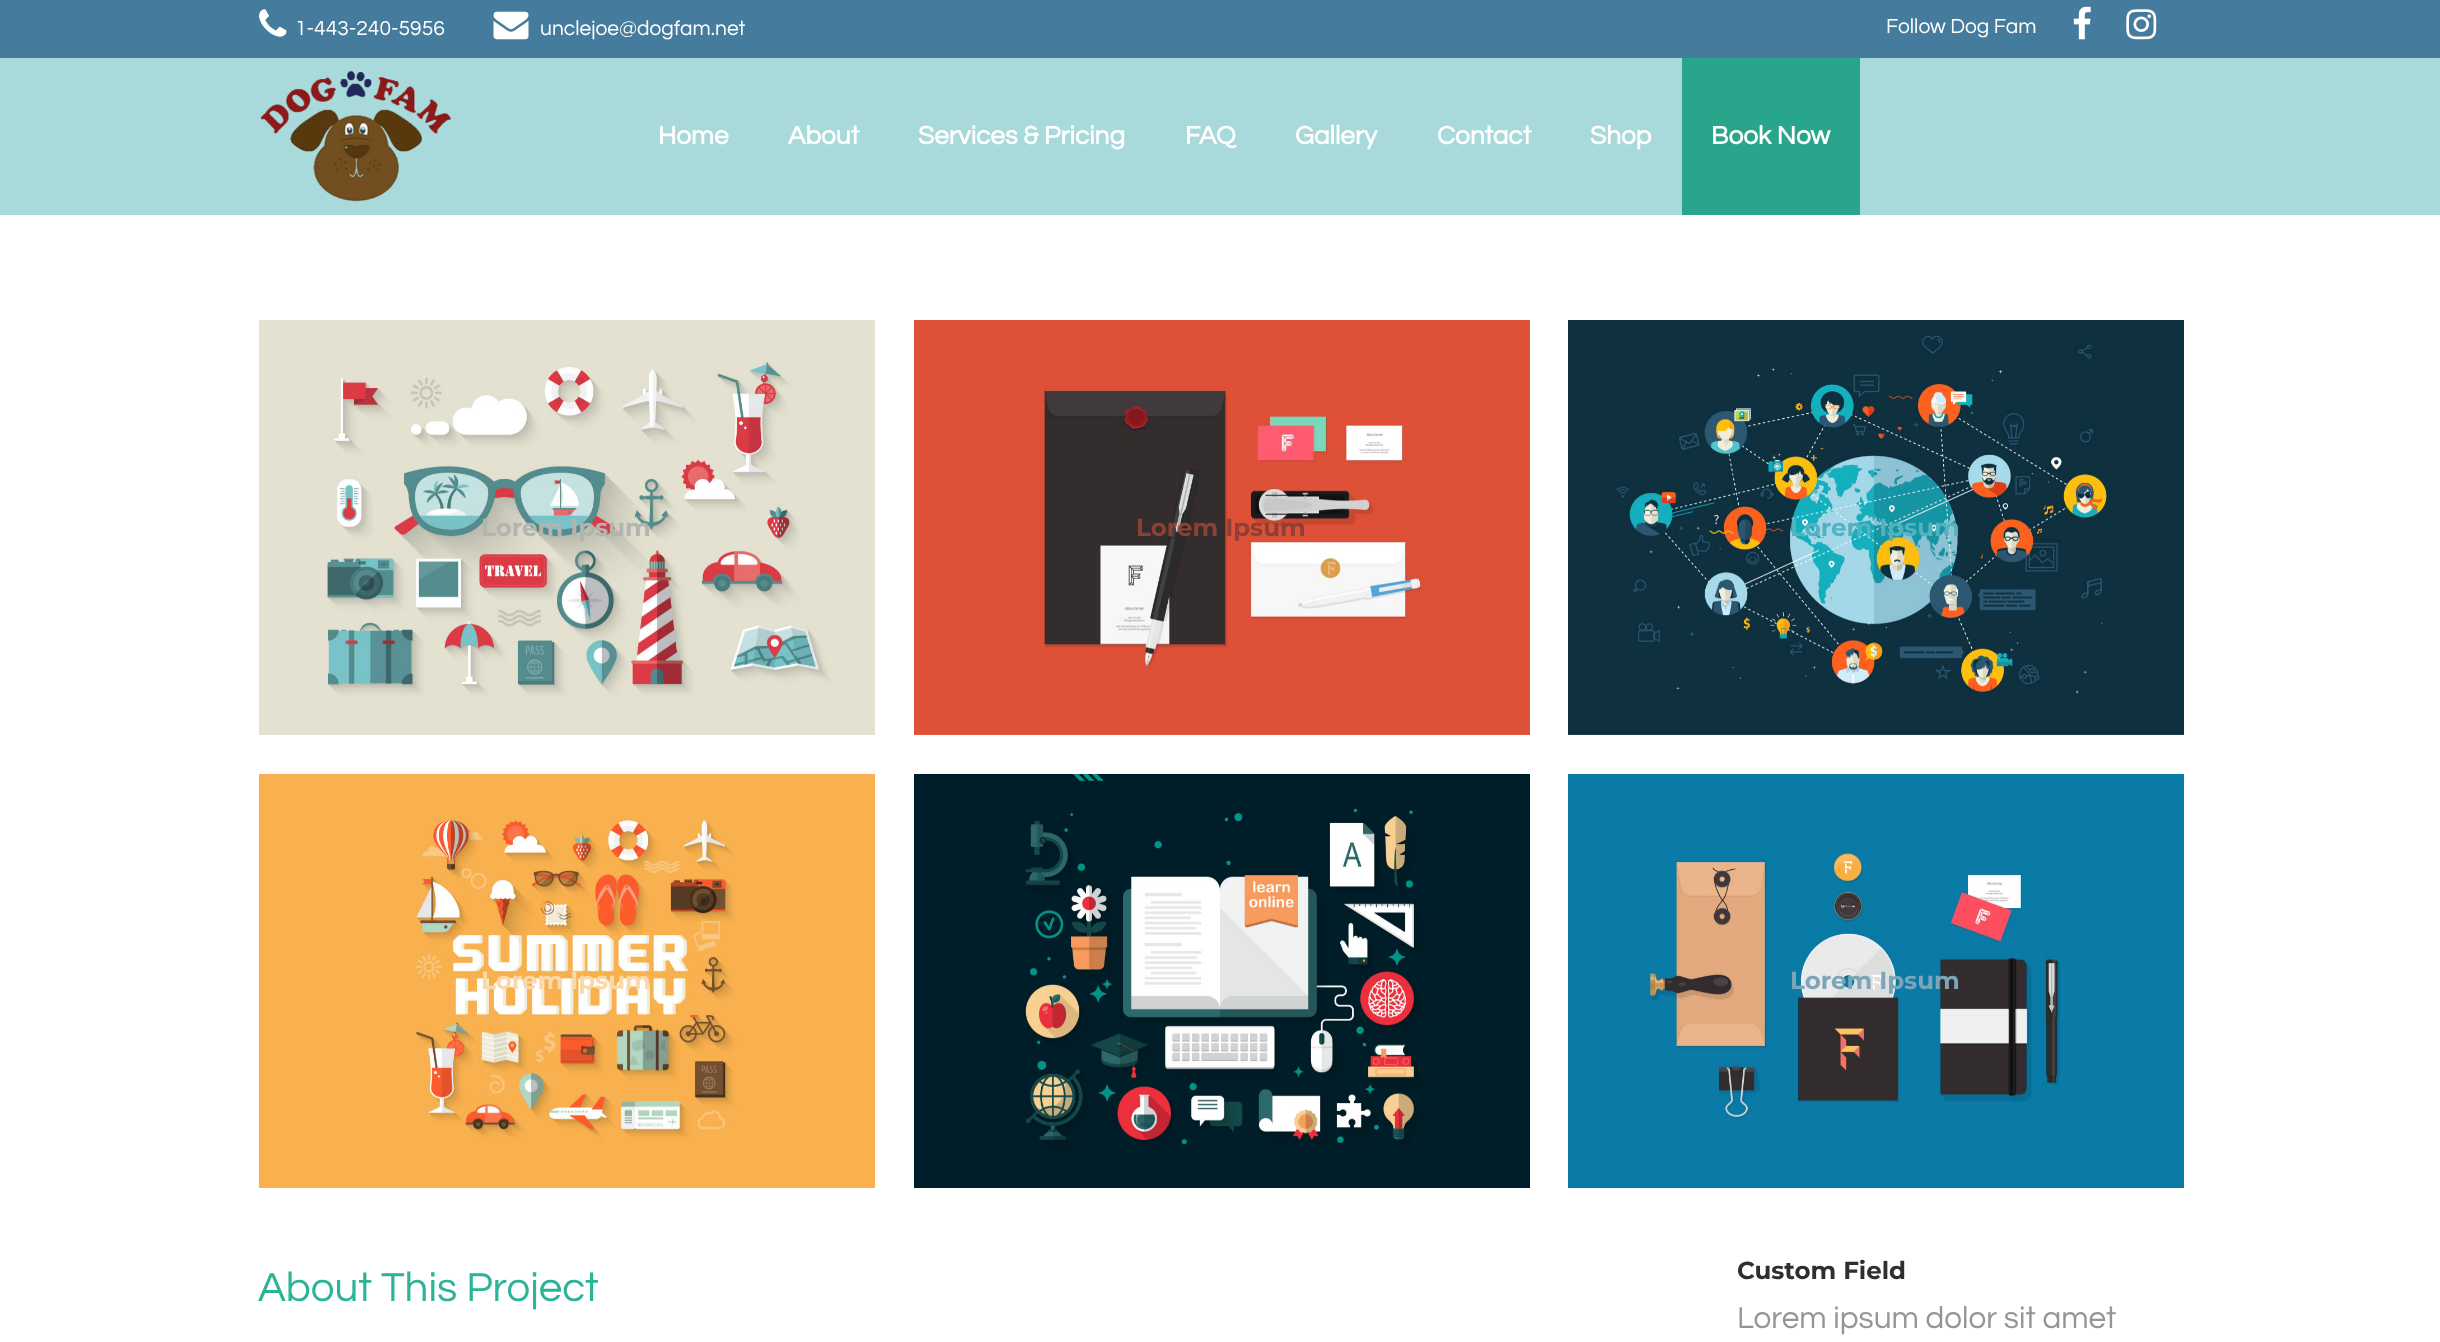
<svg xmlns="http://www.w3.org/2000/svg" xmlns:xlink="http://www.w3.org/1999/xlink" width="2440" height="1342" viewBox="0 0 2440 1342">
<style>
.cls-1{font:21px Questrial;fill:#ffffff}
.cls-2{font:bold 26.25px Questrial;fill:#ffffff}
.cls-3{font:bold 24.5px Montserrat;fill:#b2b5ad}
.cls-4{font:bold 24.5px Montserrat;fill:#8c4134}
.cls-5{font:bold 24.5px Montserrat;fill:#52b3c0}
.cls-6{font:bold 24.5px Montserrat;fill:#fad8a8}
.cls-7{font:bold 24.5px Montserrat;fill:#7aa6b8}
.cls-8{font:42px Questrial;fill:#2db397}
.cls-9{font:bold 24.5px Montserrat;fill:#2f2f2f}
.cls-10{font:31.5px Questrial;fill:#959595}
</style>
<rect width="100%" height="100%" fill="#ffffff"/>
<rect fill="#457b9d" x="0" y="0" width="2440" height="58"/>
<image xlink:href="image0.png" x="259" y="9" width="28" height="28"/>
<image xlink:href="image1.png" x="493" y="11" width="36" height="29"/>
<image xlink:href="image2.png" x="2073" y="6" width="18" height="34"/>
<image xlink:href="image3.png" x="2126" y="9" width="31" height="31"/>
<rect fill="#a8dadc" x="0" y="58" width="2440" height="157"/>
<image xlink:href="image4.png" x="260" y="71" width="191" height="131"/>
<rect fill="#29a58b" x="1682" y="58" width="178" height="157"/>
<image xlink:href="image5.png" x="259" y="320" width="616" height="415"/>
<image xlink:href="image6.png" x="914" y="320" width="616" height="415"/>
<image xlink:href="image7.png" x="1568" y="320" width="616" height="415"/>
<image xlink:href="image8.png" x="259" y="774" width="616" height="414"/>
<image xlink:href="image9.png" x="914" y="774" width="616" height="414"/>
<image xlink:href="image10.png" x="1568" y="774" width="616" height="414"/>
<text class="cls-1" x="295" y="35">1-443-240-5956</text>
<text class="cls-1" x="540" y="35">unclejoe@dogfam.net</text>
<text class="cls-1" x="1886" y="33">Follow Dog Fam</text>
<text class="cls-2" x="658" y="144">Home</text>
<text class="cls-2" x="788" y="144">About</text>
<text class="cls-2" x="918" y="144">Services &amp; Pricing</text>
<text class="cls-2" x="1185" y="144">FAQ</text>
<text class="cls-2" x="1295" y="144">Gallery</text>
<text class="cls-2" x="1437" y="144">Contact</text>
<text class="cls-2" x="1590" y="144">Shop</text>
<text class="cls-2" x="1711" y="144">Book Now</text>
<text class="cls-3" x="481" y="536">Lorem Ipsum</text>
<text class="cls-4" x="1136" y="536">Lorem Ipsum</text>
<text class="cls-5" x="1790" y="536">Lorem Ipsum</text>
<text class="cls-6" x="481" y="989">Lorem Ipsum</text>
<text class="cls-7" x="1790" y="989">Lorem Ipsum</text>
<text class="cls-8" x="258" y="1301">About This Project</text>
<text class="cls-9" x="1737" y="1279">Custom Field</text>
<text class="cls-10" x="1737" y="1328">Lorem ipsum dolor sit amet</text>
</svg>
